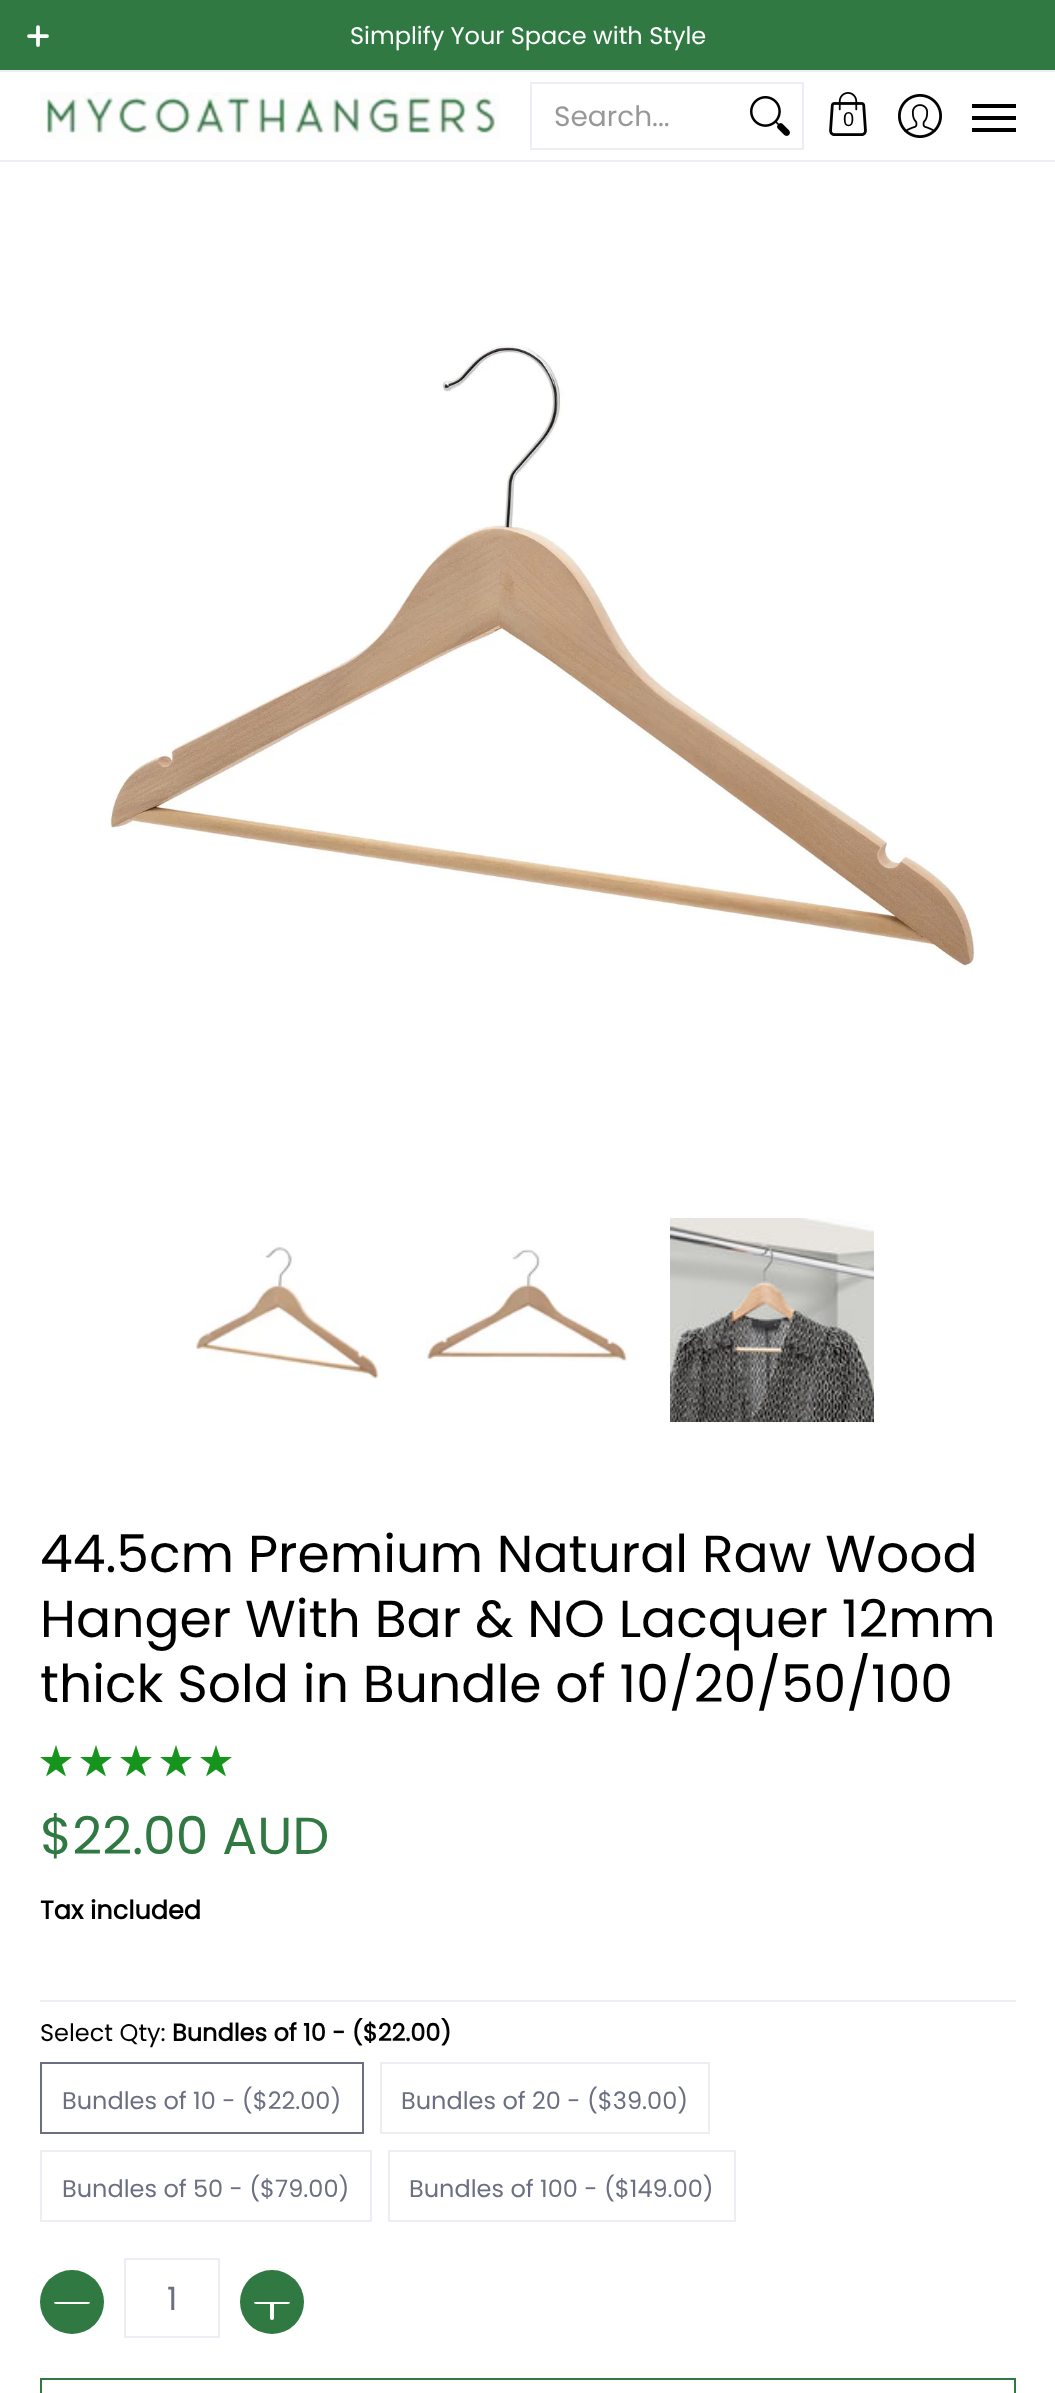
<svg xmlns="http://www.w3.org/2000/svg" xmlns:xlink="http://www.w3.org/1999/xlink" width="1055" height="2393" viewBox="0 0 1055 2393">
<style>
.cls-1{font:24px Poppins;fill:#ffffff}
.cls-2{font:28px Poppins;fill:#989898}
.cls-3{font:20px Liberation Sans;fill:#000000}
.cls-4{font:52px Poppins;fill:#000000}
.cls-5{font:52px Poppins;fill:#307943}
.cls-6{font:bold 25.5px Poppins;fill:#000000}
.cls-7{font:24px Poppins;fill:#000000}
.cls-8{font:bold 24px Poppins;fill:#000000}
.cls-9{font:24px Poppins;fill:#6b6f81}
.cls-10{font:32px Poppins;fill:#6b6f81}
</style>
<rect width="100%" height="100%" fill="#ffffff"/>
<rect fill="#307943" x="0" y="0" width="1055" height="70"/>
<rect fill="#edeef4" x="0" y="70" width="1055" height="2"/>
<image xlink:href="image0.png" x="27" y="25" width="22" height="22"/>
<rect fill="#edeef4" x="0" y="160" width="1055" height="2"/>
<image xlink:href="image1.png" x="40" y="92" width="460" height="48"/>
<rect fill="none" stroke="#edeef4" stroke-width="2" x="531" y="83" width="272" height="66"/>
<image xlink:href="image2.png" x="750" y="96" width="40" height="40"/>
<image xlink:href="image3.png" x="829" y="92" width="38" height="44"/>
<image xlink:href="image4.png" x="898" y="94" width="44" height="44"/>
<rect fill="#000000" x="972" y="104" width="44" height="4"/>
<rect fill="#000000" x="972" y="128" width="44" height="4"/>
<rect fill="#000000" x="972" y="116" width="44" height="4"/>
<image xlink:href="image5.png" x="108" y="345" width="868" height="622"/>
<image xlink:href="image6.png" x="194" y="1247" width="185" height="132"/>
<image xlink:href="image7.png" x="426" y="1249" width="202" height="113"/>
<image xlink:href="image8.png" x="670" y="1218" width="204" height="204"/>
<path fill="#16941d" d="M62 1764.5L72 1757H60L56 1745L52 1757H40L50 1764.5L46 1776.5L56 1769.5L66 1776.5Z"/>
<path fill="#16941d" d="M102 1764.5L112 1757H100L96 1745L92 1757H80L90 1764.5L86 1776.5L96 1769.5L106 1776.5Z"/>
<path fill="#16941d" d="M142 1764.5L152 1757H140L136 1745L132 1757H120L130 1764.5L126 1776.5L136 1769.5L146 1776.5Z"/>
<path fill="#16941d" d="M182 1764.5L192 1757H180L176 1745L172 1757H160L170 1764.5L166 1776.5L176 1769.5L186 1776.5Z"/>
<path fill="#16941d" d="M222 1764.5L232 1757H220L216 1745L212 1757H200L210 1764.5L206 1776.5L216 1769.5L226 1776.5Z"/>
<rect fill="#edeef4" x="40" y="2000" width="976" height="2"/>
<rect fill="none" stroke="#6b6f81" stroke-width="2" x="41" y="2063" width="322" height="70"/>
<rect fill="none" stroke="#edeef4" stroke-width="2" x="381" y="2063" width="328" height="70"/>
<rect fill="none" stroke="#edeef4" stroke-width="2" x="41" y="2151" width="330" height="70"/>
<rect fill="none" stroke="#edeef4" stroke-width="2" x="389" y="2151" width="346" height="70"/>
<circle fill="#307943" cx="72" cy="2302" r="32"/>
<image xlink:href="image9.png" x="54" y="2302" width="36" height="2"/>
<rect fill="none" stroke="#edeef4" stroke-width="2" x="125" y="2259" width="94" height="78"/>
<circle fill="#307943" cx="272" cy="2302" r="32"/>
<image xlink:href="image10.png" x="254" y="2302" width="36" height="18"/>
<rect fill="none" stroke="#307943" stroke-width="2" x="41" y="2379" width="974" height="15"/>
<text class="cls-1" x="350" y="44">Simplify Your Space with Style</text>
<text class="cls-2" x="554" y="126">Search...</text>
<text class="cls-3" x="843" y="126">0</text>
<text class="cls-4"><tspan x="40" y="1572">44.5cm Premium Natural Raw Wood</tspan><tspan x="40" y="1637">Hanger With Bar &amp; NO Lacquer 12mm</tspan><tspan x="40" y="1702">thick Sold in Bundle of 10/20/50/100</tspan></text>
<text class="cls-5" x="40" y="1854">$22.00 AUD</text>
<text class="cls-6" x="40" y="1919">Tax included</text>
<text class="cls-7" x="40" y="2041">Select Qty:</text>
<text class="cls-8" x="172" y="2041">Bundles of 10 - ($22.00)</text>
<text class="cls-9" x="62" y="2109">Bundles of 10 - ($22.00)</text>
<text class="cls-9" x="401" y="2109">Bundles of 20 - ($39.00)</text>
<text class="cls-9" x="62" y="2197">Bundles of 50 - ($79.00)</text>
<text class="cls-9" x="409" y="2197">Bundles of 100 - ($149.00)</text>
<text class="cls-10" x="167" y="2310">1</text>
</svg>
